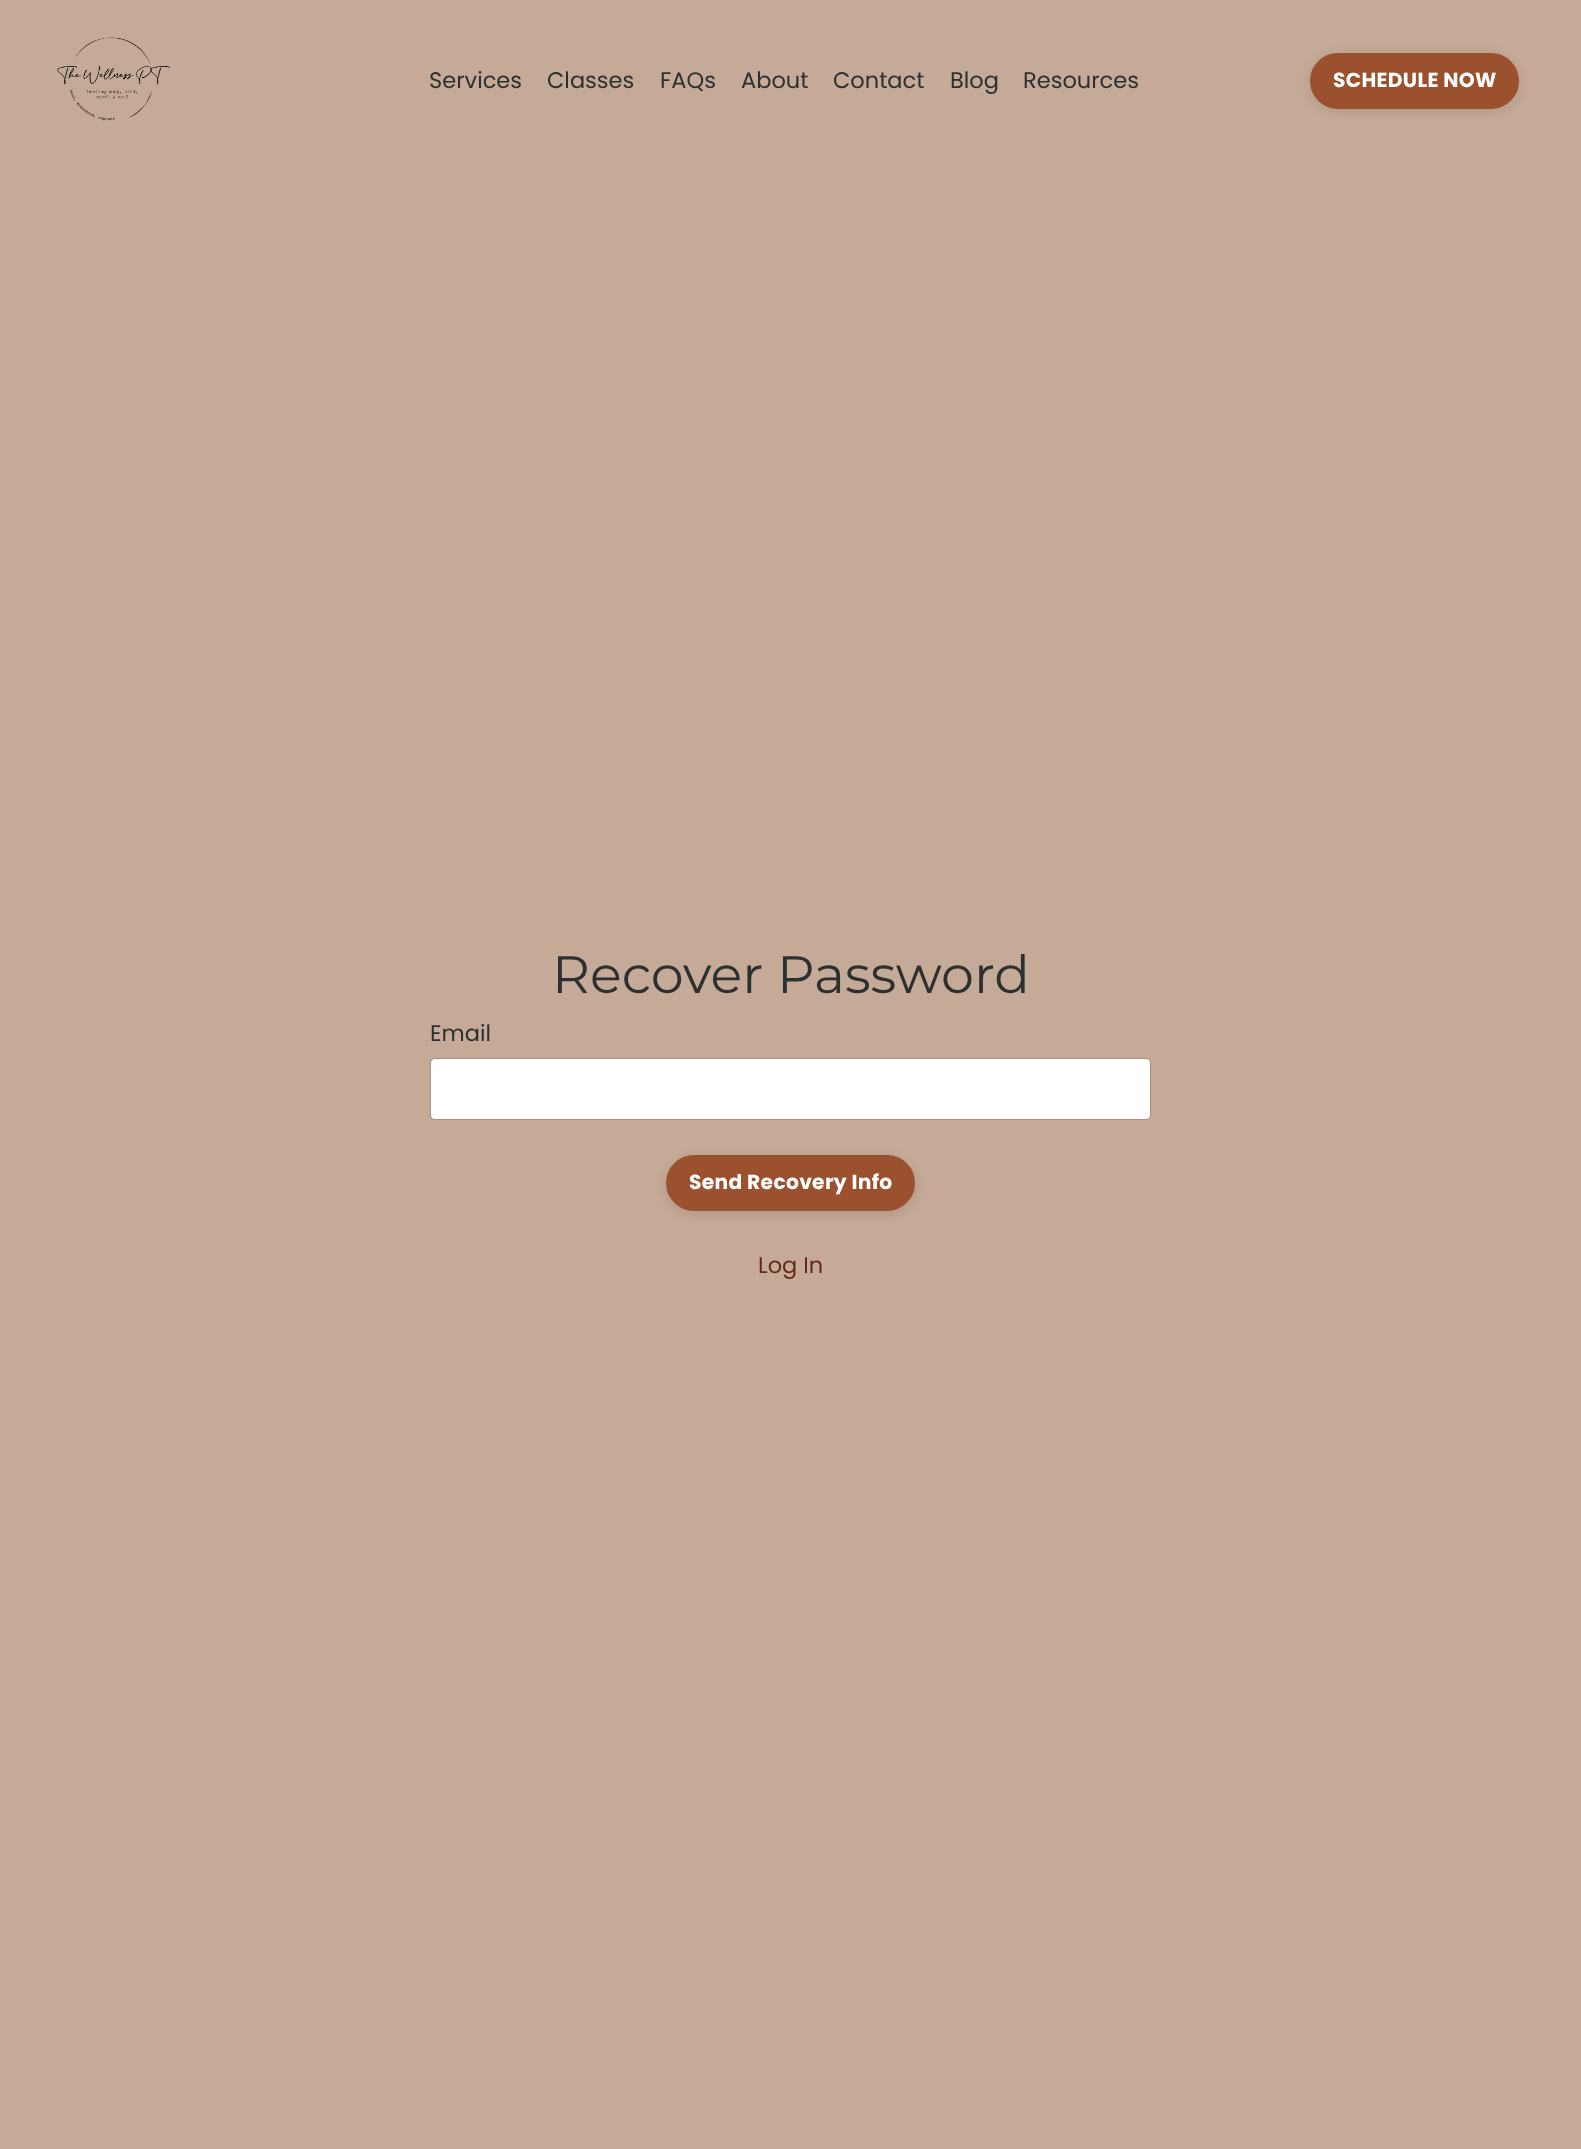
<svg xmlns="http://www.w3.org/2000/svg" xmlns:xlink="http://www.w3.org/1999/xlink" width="1581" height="2149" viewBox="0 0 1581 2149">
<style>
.cls-1{font:22.5px Poppins;fill:#2d3031}
.cls-2{font:bold 20.25px Poppins;letter-spacing:0.3px;fill:#ffffff}
.cls-3{font:52.5px Montserrat;fill:#2d3031}
.cls-4{font:22.5px Poppins;fill:#622c1c}
</style>
<rect width="100%" height="100%" fill="#c4aa97"/>
<image xlink:href="image0.png" x="57" y="37" width="113" height="84"/>
<rect fill="#000000" fill-opacity="0.1" filter="blur(6px)" x="1310" y="55" width="209" height="56" rx="28"/>
<rect fill="#9b502e" stroke="#9b502e" stroke-width="3" x="1311.5" y="54.5" width="206" height="53" rx="26.5"/>
<rect fill="#ffffff" x="431" y="1059" width="719" height="60" rx="4"/>
<rect fill="none" stroke="#000000" stroke-opacity="0.15" x="430.5" y="1058.5" width="720" height="61" rx="4.5"/>
<rect fill="#000000" fill-opacity="0.1" filter="blur(6px)" x="666" y="1158" width="249" height="56" rx="28"/>
<rect fill="#9b502e" stroke="#9b502e" stroke-width="3" x="667.5" y="1156.5" width="246" height="53" rx="26.5"/>
<text class="cls-1" x="429" y="88">Services</text>
<text class="cls-1" x="547" y="88">Classes</text>
<text class="cls-1" x="660" y="88">FAQs</text>
<text class="cls-1" x="741" y="88">About</text>
<text class="cls-1" x="833" y="88">Contact</text>
<text class="cls-1" x="950" y="88">Blog</text>
<text class="cls-1" x="1023" y="88">Resources</text>
<text class="cls-2" x="1333" y="87">SCHEDULE NOW</text>
<text class="cls-3" x="552" y="993">Recover Password</text>
<text class="cls-1" x="430" y="1041">Email</text>
<text class="cls-2" x="689" y="1189">Send Recovery Info</text>
<text class="cls-4" x="758" y="1273">Log In</text>
</svg>
